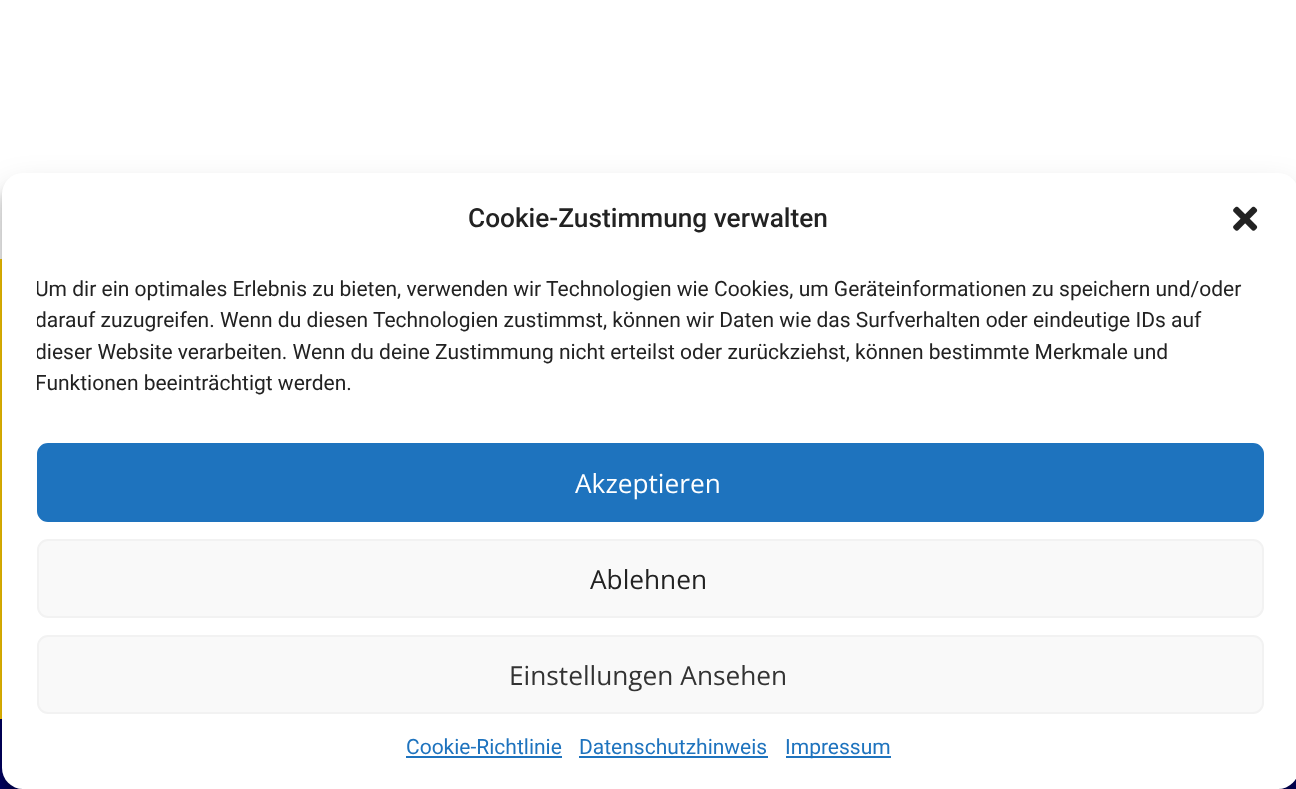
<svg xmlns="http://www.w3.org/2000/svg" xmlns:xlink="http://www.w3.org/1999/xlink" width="1296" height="789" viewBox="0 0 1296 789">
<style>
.cls-1{font:500 26.25px Roboto;fill:#222222}
.cls-2{font:21px Roboto;fill:#222222}
.cls-3{font:26.25px Open Sans;fill:#ffffff}
.cls-4{font:26.25px Open Sans;fill:#222222}
.cls-5{font:26.25px Open Sans;fill:#333333}
.cls-6{font:21px Roboto;fill:#1e73be}
</style>
<defs>
<clipPath id="clip1"><rect x="37" y="273" width="1227" height="135"/></clipPath>
</defs>
<rect width="100%" height="100%" fill="#ffffff"/>
<rect fill="#ffcc00" x="0" y="259" width="2" height="460"/>
<rect fill="#010066" x="0" y="719" width="1296" height="70"/>
<rect fill="#000000" fill-opacity="0.23" filter="blur(5px)" x="2" y="184" width="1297" height="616" rx="21"/>
<rect fill="#000000" fill-opacity="0.19" filter="blur(17.5px)" x="2" y="191" width="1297" height="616" rx="21"/>
<rect fill="#ffffff" x="2" y="173" width="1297" height="616" rx="21"/>
<image xlink:href="image0.png" x="1233" y="206" width="25" height="25"/>
<rect fill="#1e73be" stroke="#1e73be" stroke-width="2" x="38" y="444" width="1225" height="77" rx="10"/>
<rect fill="#f9f9f9" stroke="#f2f2f2" stroke-width="2" x="38" y="540" width="1225" height="77" rx="10"/>
<rect fill="#f9f9f9" stroke="#f2f2f2" stroke-width="2" x="38" y="636" width="1225" height="77" rx="10"/>
<rect fill="#1e73be" x="406" y="756" width="156" height="2"/>
<rect fill="#1e73be" x="579" y="756" width="189" height="2"/>
<rect fill="#1e73be" x="786" y="756" width="105" height="2"/>
<text class="cls-1" x="468" y="227">Cookie-Zustimmung verwalten</text>
<g clip-path="url(#clip1)">
<text class="cls-2"><tspan x="35" y="296">Um dir ein optimales Erlebnis zu bieten, verwenden wir Technologien wie Cookies, um Geräteinformationen zu speichern und/oder</tspan><tspan x="35" y="327">darauf zuzugreifen. Wenn du diesen Technologien zustimmst, können wir Daten wie das Surfverhalten oder eindeutige IDs auf</tspan><tspan x="35" y="359">dieser Website verarbeiten. Wenn du deine Zustimmung nicht erteilst oder zurückziehst, können bestimmte Merkmale und</tspan><tspan x="35" y="390">Funktionen beeinträchtigt werden.</tspan></text>
</g>
<text class="cls-3" x="575" y="493">Akzeptieren</text>
<text class="cls-4" x="590" y="589">Ablehnen</text>
<text class="cls-5" x="509" y="685">Einstellungen Ansehen</text>
<text class="cls-6" x="406" y="754">Cookie-Richtlinie</text>
<text class="cls-6" x="579" y="754">Datenschutzhinweis</text>
<text class="cls-6" x="785" y="754">Impressum</text>
</svg>
